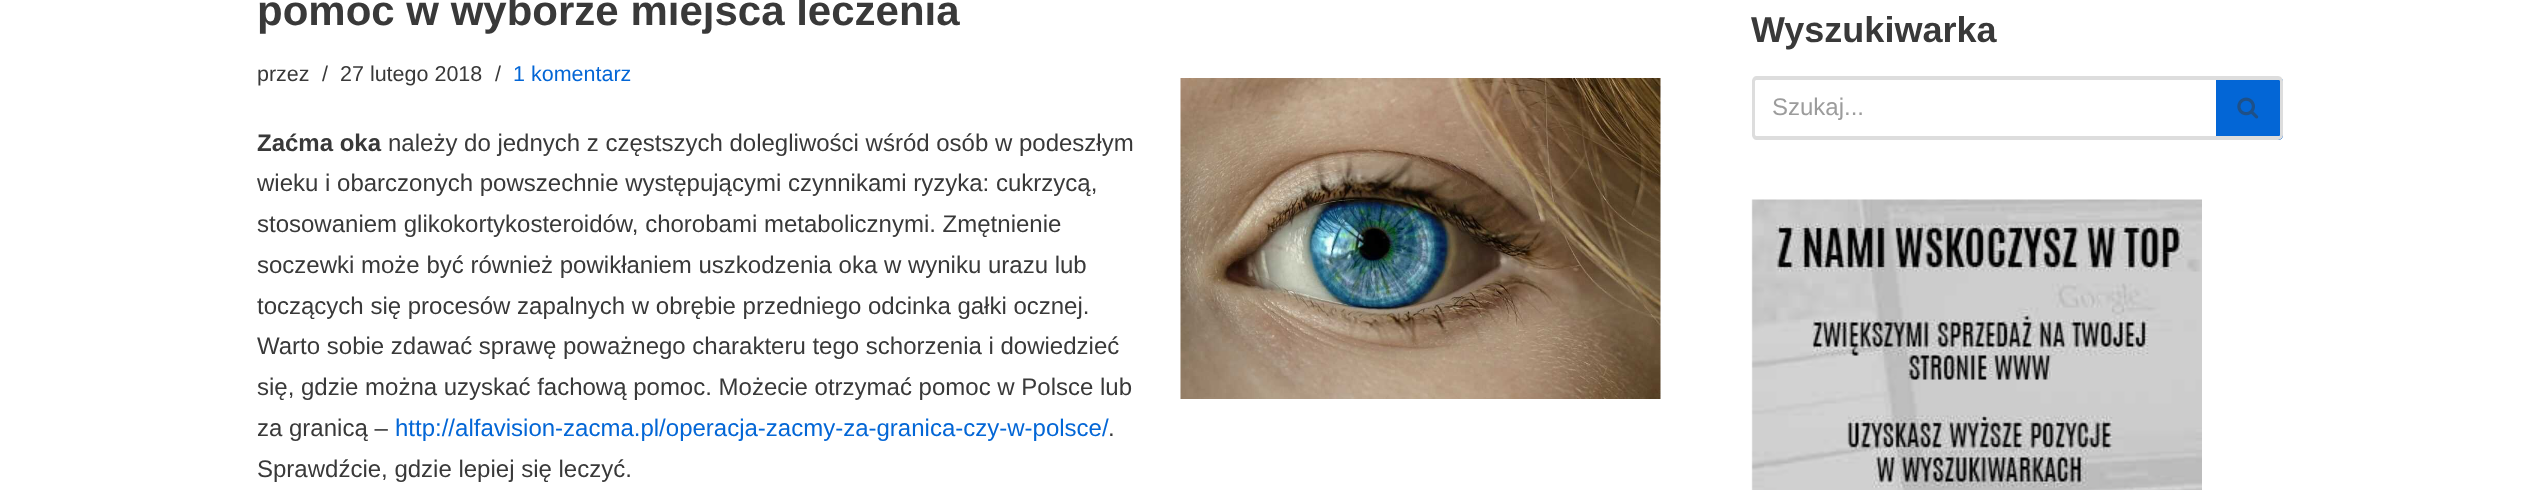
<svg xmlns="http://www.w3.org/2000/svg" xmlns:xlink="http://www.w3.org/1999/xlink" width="2539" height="490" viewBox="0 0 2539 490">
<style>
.cls-1{font:bold 42px Liberation Sans;fill:#393939}
.cls-2{font:21.5px Liberation Sans;fill:#393939}
.cls-3{font:21.5px Liberation Sans;fill:#0366d6}
.cls-4{font:bold 24px Liberation Sans;fill:#393939}
.cls-5{font:24px Liberation Sans;fill:#393939}
.cls-6{font:24px Liberation Sans;fill:#0366d6}
.cls-7{font:bold 36px Liberation Sans;fill:#393939}
.cls-8{font:24px Liberation Sans;fill:#9c9c9c}
</style>
<rect width="100%" height="100%" fill="#ffffff"/>
<image xlink:href="image0.png" x="1180" y="78" width="481" height="321"/>
<path fill="#dddddd" fill-rule="evenodd" d="M1756 76H2216V140H1756C1754 140 1752 137 1752 135V81C1752 79 1754 76 1756 76ZM1756 80H2216V136H1756L1755 135V81Z"/>
<path fill="#0366d6" d="M2216 77H2278C2281 77 2283 79 2283 82V135C2283 138 2281 140 2278 140H2216Z"/>
<path fill="#dddddd" fill-rule="evenodd" d="M2216 76H2278C2281 76 2283 79 2283 81V135C2283 137 2281 140 2278 140H2216ZM2216 80H2278C2279 80 2280 80 2280 81V135C2280 136 2279 136 2278 136H2216Z"/>
<image xlink:href="image1.png" x="2237" y="97" width="22" height="22"/>
<image xlink:href="image2.png" x="1751" y="199" width="451" height="291"/>
<text class="cls-1" x="257" y="25">pomoc w wyborze miejsca leczenia</text>
<text class="cls-2" x="257" y="81">przez</text>
<text class="cls-2" x="322" y="81">/</text>
<text class="cls-2" x="340" y="81">27 lutego 2018</text>
<text class="cls-2" x="495" y="81">/</text>
<text class="cls-3" x="513" y="81">1 komentarz</text>
<text class="cls-4" x="257" y="151">Zaćma oka</text>
<text class="cls-5" x="388" y="151">należy do jednych z częstszych dolegliwości wśród osób w podeszłym</text>
<text class="cls-5"><tspan x="257" y="191">wieku i obarczonych powszechnie występującymi czynnikami ryzyka: cukrzycą,</tspan><tspan x="257" y="232">stosowaniem glikokortykosteroidów, chorobami metabolicznymi. Zmętnienie</tspan><tspan x="257" y="273">soczewki może być również powikłaniem uszkodzenia oka w wyniku urazu lub</tspan><tspan x="257" y="314">toczących się procesów zapalnych w obrębie przedniego odcinka gałki ocznej.</tspan><tspan x="257" y="354">Warto sobie zdawać sprawę poważnego charakteru tego schorzenia i dowiedzieć</tspan><tspan x="257" y="395">się, gdzie można uzyskać fachową pomoc. Możecie otrzymać pomoc w Polsce lub</tspan><tspan x="257" y="436">za granicą –</tspan></text>
<text class="cls-6" x="395" y="436">http://alfavision-zacma.pl/operacja-zacmy-za-granica-czy-w-polsce/</text>
<text class="cls-5" x="1108" y="436">.</text>
<text class="cls-5" x="257" y="477">Sprawdźcie, gdzie lepiej się leczyć.</text>
<text class="cls-7" x="1751" y="42">Wyszukiwarka</text>
<text class="cls-8" x="1772" y="115">Szukaj...</text>
</svg>
